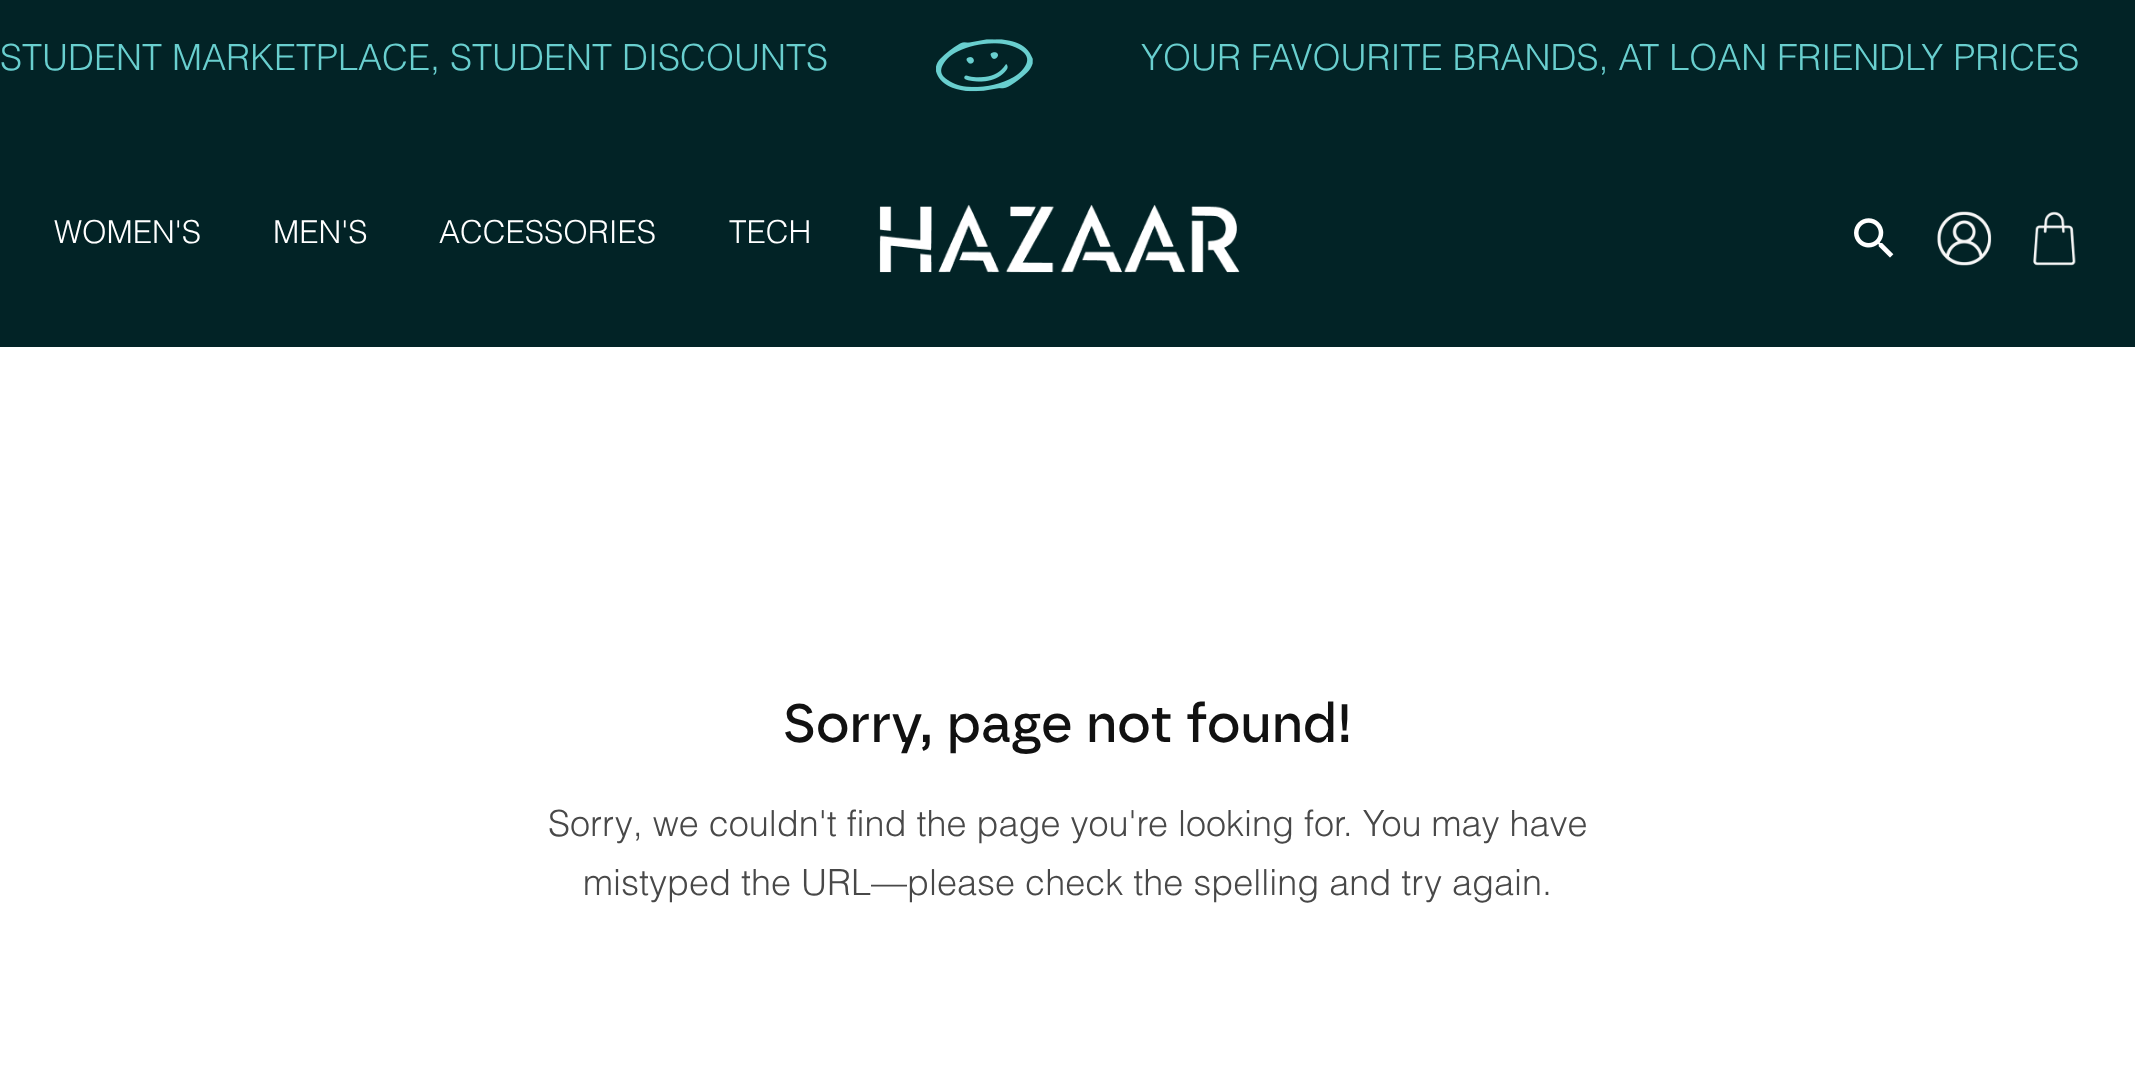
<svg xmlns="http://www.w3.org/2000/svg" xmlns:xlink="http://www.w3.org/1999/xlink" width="2135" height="1080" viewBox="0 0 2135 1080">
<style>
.cls-1{font:300 36px Helvetica;fill:#69cfcf}
.cls-2{font:300 31.5px Helvetica;fill:#ffffff}
.cls-3{font:500 54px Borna;fill:#111111}
.cls-4{font:300 36px Helvetica;fill:#484848}
</style>
<rect width="100%" height="100%" fill="#ffffff"/>
<rect fill="#022326" x="0" y="0" width="2135" height="347"/>
<image xlink:href="image0.png" x="936" y="39" width="97" height="53"/>
<image xlink:href="image1.png" x="879" y="204" width="361" height="69"/>
<image xlink:href="image2.png" x="1854" y="218" width="40" height="40"/>
<image xlink:href="image3.png" x="1937" y="211" width="55" height="55"/>
<image xlink:href="image4.png" x="2033" y="211" width="43" height="55"/>
<text class="cls-1" x="0" y="70">STUDENT MARKETPLACE, STUDENT DISCOUNTS</text>
<text class="cls-1" x="1141" y="70">YOUR FAVOURITE BRANDS, AT LOAN FRIENDLY PRICES</text>
<text class="cls-2" x="54" y="243">WOMEN'S</text>
<text class="cls-2" x="273" y="243">MEN'S</text>
<text class="cls-2" x="439" y="243">ACCESSORIES</text>
<text class="cls-2" x="729" y="243">TECH</text>
<text class="cls-3" x="782" y="742">Sorry, page not found!</text>
<text class="cls-4" x="548" y="836">Sorry, we couldn't find the page you're looking for. You may have</text>
<text class="cls-4" x="583" y="895">mistyped the URL—please check the spelling and try again.</text>
</svg>
